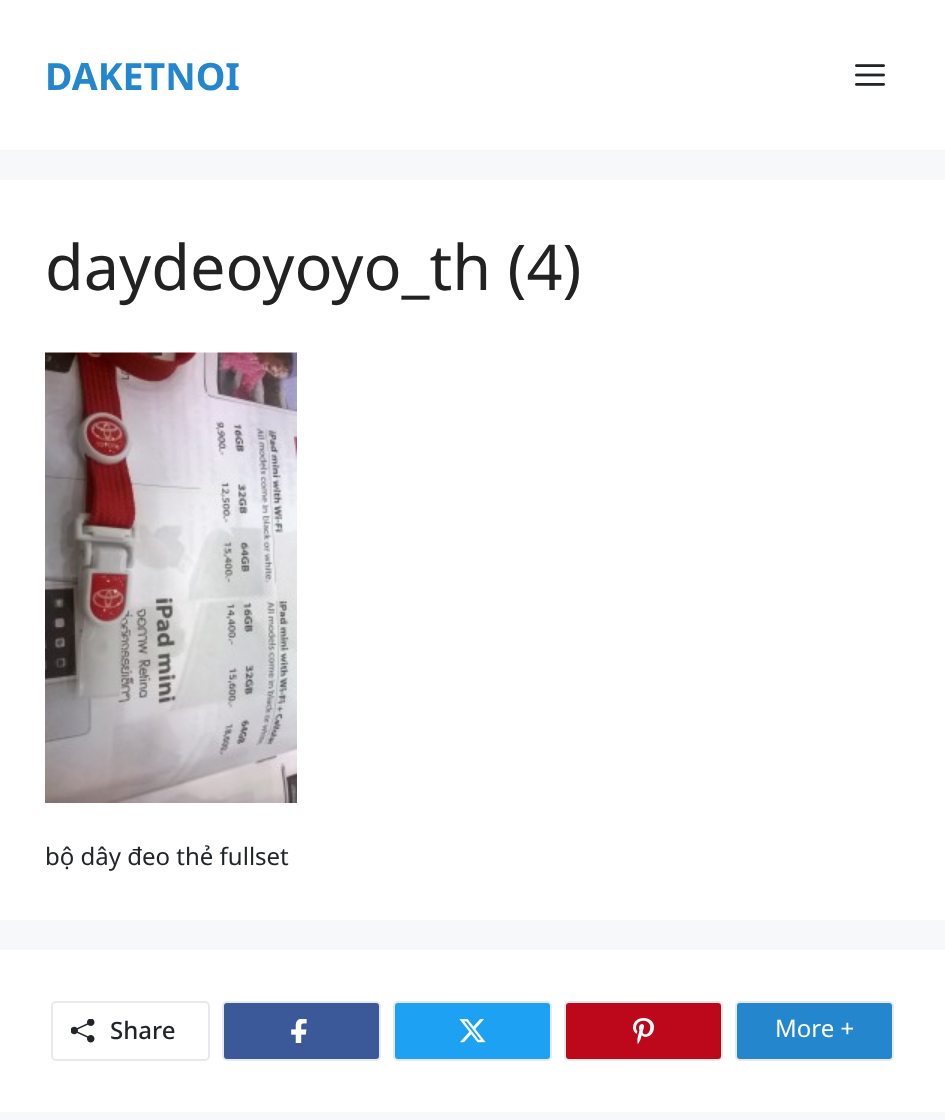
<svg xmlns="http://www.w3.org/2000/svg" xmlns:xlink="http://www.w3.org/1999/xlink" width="945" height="1120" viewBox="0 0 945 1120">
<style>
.cls-1{font:bold 37.5px Noto Sans;fill:#2487ce}
.cls-2{font:63px Noto Sans;fill:#222222}
.cls-3{font:24px Noto Sans;fill:#212529}
.cls-4{font:500 24px Noto Sans;fill:#212529}
.cls-5{font:24px Noto Sans;fill:#ffffff}
</style>
<rect width="100%" height="100%" fill="#f7f8f9"/>
<rect fill="#ffffff" x="0" y="0" width="945" height="150"/>
<image xlink:href="image0.png" x="855" y="64" width="30" height="22"/>
<rect fill="#ffffff" x="0" y="180" width="945" height="740"/>
<image xlink:href="image1.png" x="45" y="352" width="252" height="451"/>
<rect fill="#ffffff" x="0" y="950" width="945" height="162"/>
<rect fill="none" stroke="#e9e9e9" stroke-width="2" x="52" y="1002" width="157" height="58" rx="4"/>
<image xlink:href="image2.png" x="71" y="1019" width="24" height="24"/>
<rect fill="#3b5998" stroke="#e9e9e9" stroke-width="2" x="223" y="1002" width="157" height="58" rx="4"/>
<image xlink:href="image3.png" x="291" y="1019" width="16" height="24"/>
<rect fill="#1da1f2" stroke="#e9e9e9" stroke-width="2" x="394" y="1002" width="157" height="58" rx="4"/>
<image xlink:href="image4.png" x="459" y="1019" width="27" height="24"/>
<rect fill="#bd081c" stroke="#e9e9e9" stroke-width="2" x="565" y="1002" width="157" height="58" rx="4"/>
<image xlink:href="image5.png" x="633" y="1018" width="21" height="26"/>
<rect fill="#2487ce" stroke="#e9e9e9" stroke-width="2" x="736" y="1002" width="157" height="58" rx="4"/>
<text class="cls-1" x="45" y="90">DAKETNOI</text>
<text class="cls-2" x="45" y="290">daydeoyoyo_th (4)</text>
<text class="cls-3" x="45" y="865">bộ dây đeo thẻ fullset</text>
<text class="cls-4" x="110" y="1039">Share</text>
<text class="cls-5" x="775" y="1037">More +</text>
</svg>
